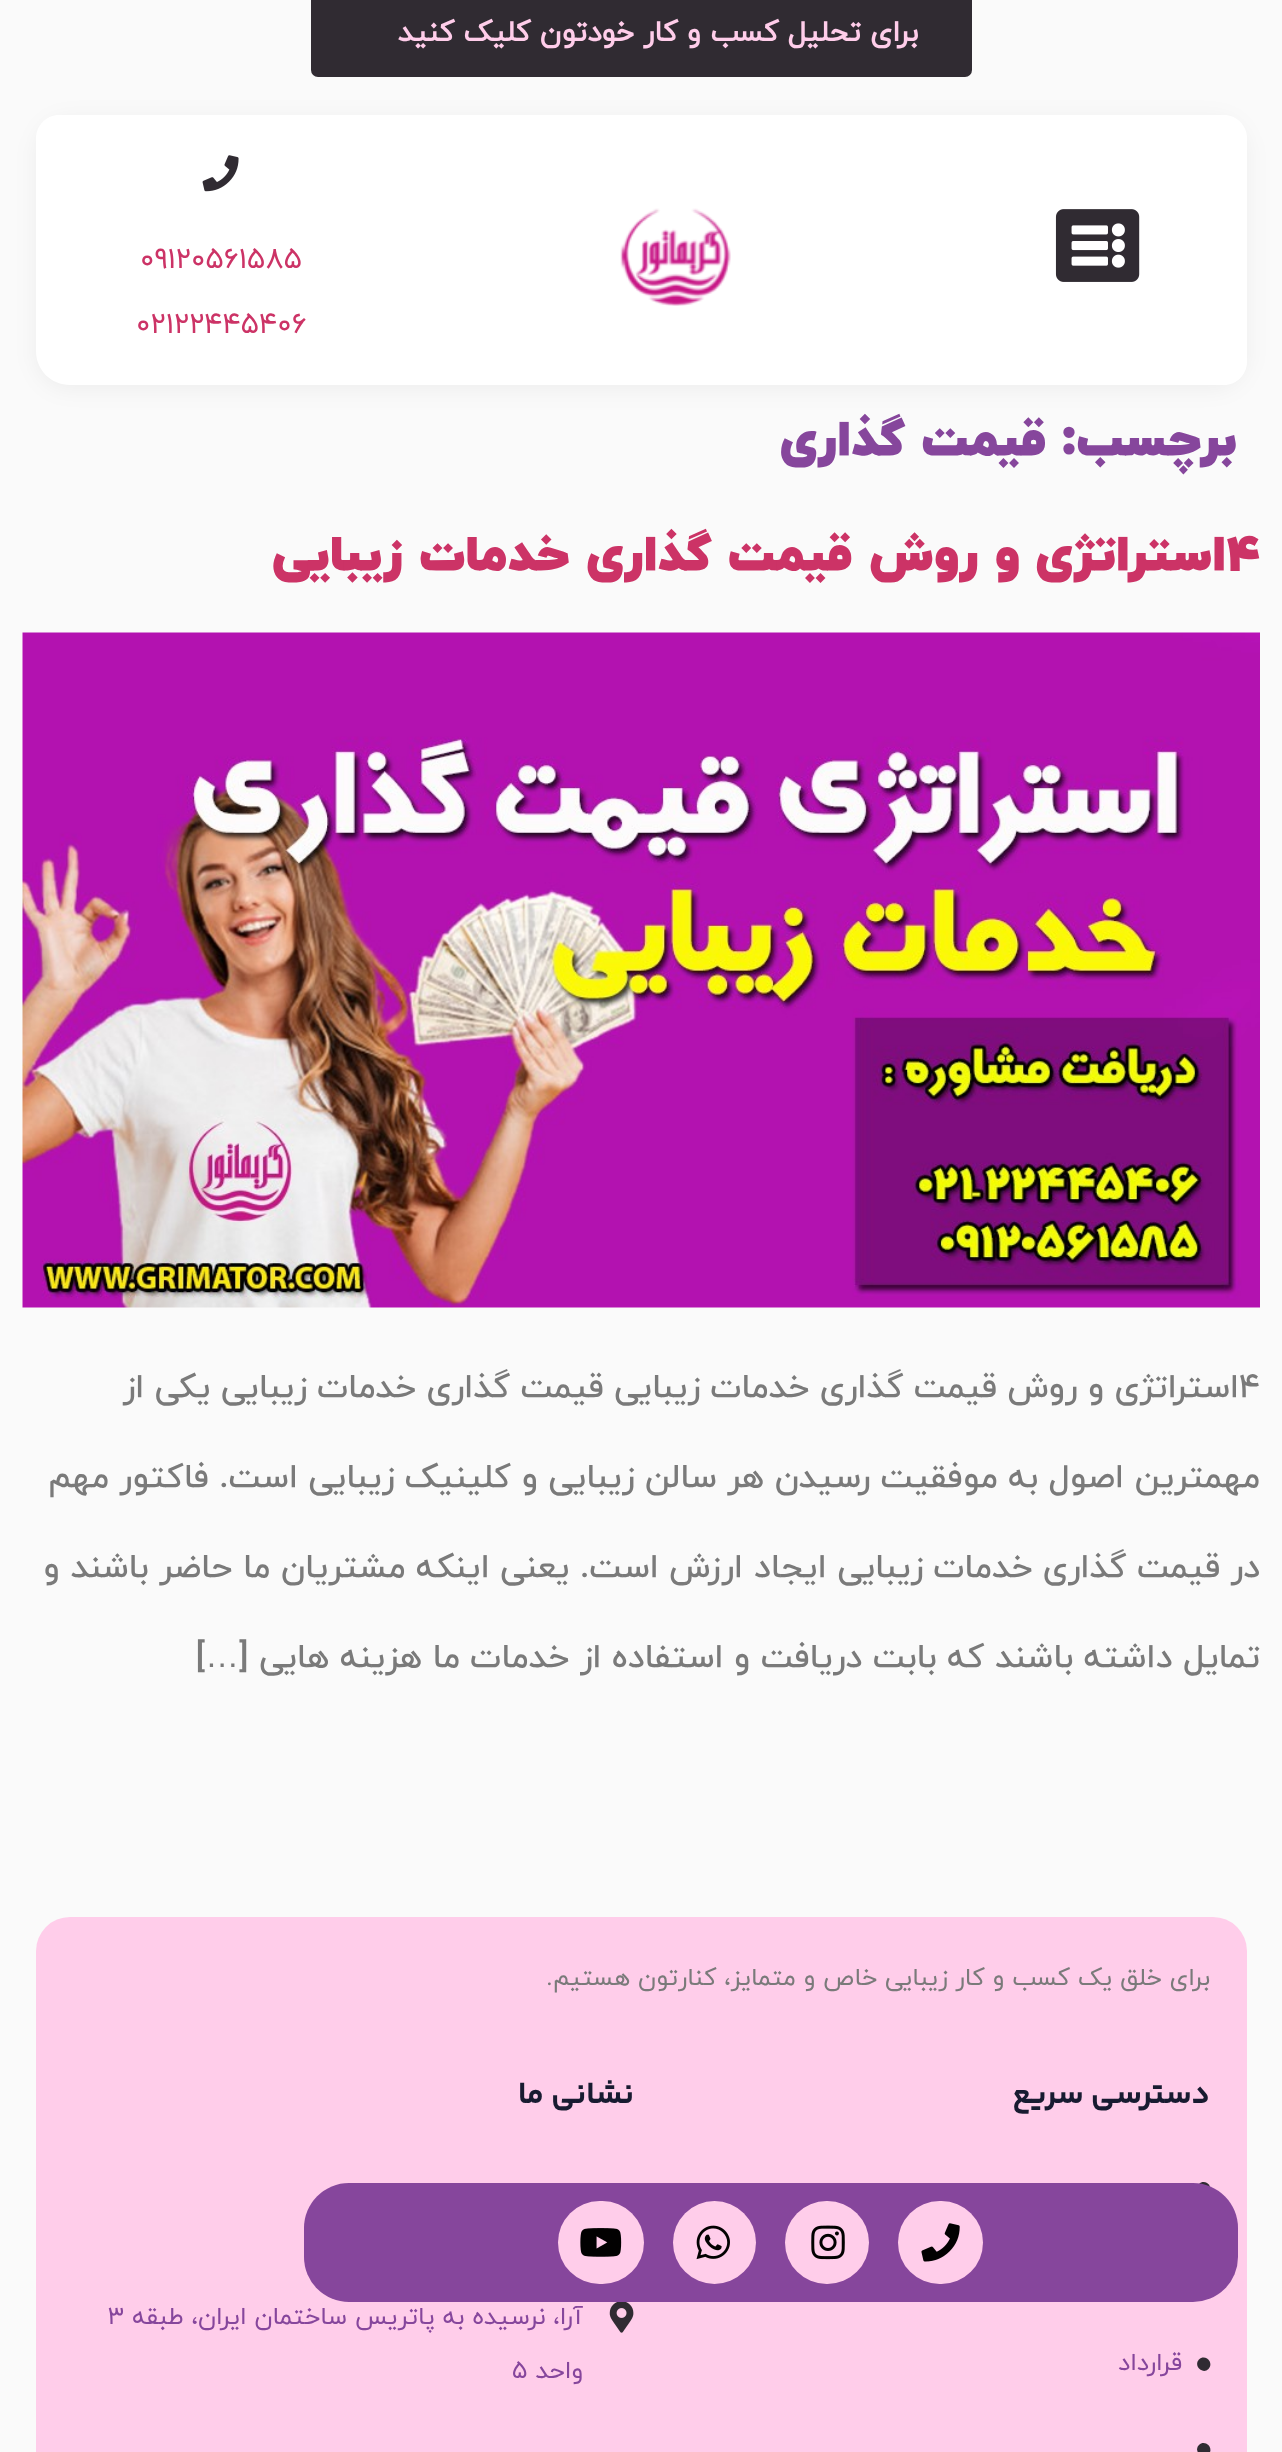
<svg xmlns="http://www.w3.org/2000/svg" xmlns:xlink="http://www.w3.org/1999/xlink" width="1282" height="2452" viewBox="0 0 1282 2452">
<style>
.cls-1{font:bold 29.25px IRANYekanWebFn;direction:rtl;fill:#ffcdea}
.cls-2{font:29.25px IRANYekanWebFn;fill:#cc3366}
.cls-3{font:900 49.5px IRANYekanWebFn;direction:rtl;fill:#86469c}
.cls-4{font:900 49.5px IRANYekanWebFn;fill:#cc3366}
.cls-5{font:900 49.5px IRANYekanWebFn;direction:rtl;fill:#cc3366}
.cls-6{font:500 33.75px IRANYekanWebFn;fill:#7a7a7a}
.cls-7{font:500 33.75px IRANYekanWebFn;direction:rtl;fill:#7a7a7a}
.cls-8{font:33.75px Liberation Sans;direction:rtl;fill:#7a7a7a}
.cls-9{font:24.75px IRANYekanWebFn;direction:rtl;fill:#7a7a7a}
.cls-10{font:bold 31.5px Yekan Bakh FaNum;direction:rtl;fill:#181b31}
.cls-11{font:24.75px IRANYekanWebFn;direction:rtl;fill:#86469c}
.cls-12{font:24.75px IRANYekanWebFn;fill:#86469c}
</style>
<rect width="100%" height="100%" fill="#fafafa"/>
<rect fill="#302b32" x="311" y="-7" width="661" height="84" rx="7"/>
<rect fill="#000000" fill-opacity="0.05" filter="blur(11px)" x="36" y="119" width="1211" height="270" rx="34"/>
<path fill="#ffffff" d="M59 115H1224C1236.5 115 1247 125.5 1247 138V362C1247 374.5 1236.5 385 1224 385H70C51 385 36 370 36 351V138C36 125.5 46.5 115 59 115Z"/>
<image xlink:href="image0.png" x="1055" y="209" width="85" height="73"/>
<image xlink:href="image1.png" x="620" y="208" width="111" height="98"/>
<image xlink:href="image2.png" x="202" y="155" width="37" height="37"/>
<image xlink:href="image3.png" x="22" y="632" width="1238" height="676"/>
<rect fill="#ffcdea" x="36" y="1917" width="1211" height="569" rx="34"/>
<path fill="#302b32" d="M1199 2184C1205 2178 1214.5 2187 1208.5 2193.5C1202.5 2199.5 1193 2190 1199 2184Z"/>
<path fill="#302b32" d="M1199 2359.5C1205 2353.5 1214.5 2362.5 1208.5 2369C1202.5 2375 1193 2365.5 1199 2359.5Z"/>
<path fill="#302b32" d="M1199 2445C1205 2439 1214.5 2448 1208.5 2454.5C1202.5 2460.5 1193 2451 1199 2445Z"/>
<image xlink:href="image4.png" x="609" y="2302" width="25" height="31"/>
<rect fill="#86469c" x="304" y="2183" width="934" height="119" rx="45"/>
<rect fill="#ffcdea" x="898" y="2201" width="85" height="83" rx="41.5"/>
<image xlink:href="image5.png" x="921" y="2223" width="39" height="39"/>
<rect fill="#ffcdea" x="785" y="2201" width="84" height="83" rx="41.5"/>
<image xlink:href="image6.png" x="811" y="2225" width="34" height="35"/>
<circle fill="#ffcdea" cx="714.5" cy="2242.5" r="41.5"/>
<image xlink:href="image7.png" x="696" y="2225" width="34" height="35"/>
<rect fill="#ffcdea" x="558" y="2201" width="86" height="83" rx="41.5"/>
<image xlink:href="image8.png" x="580" y="2228" width="42" height="29"/>
<text class="cls-1" x="918" y="41">برای تحلیل کسب و کار خودتون کلیک کنید</text>
<text class="cls-2" x="140" y="268">09120561585</text>
<text class="cls-2" x="136" y="333">02122445406</text>
<text class="cls-3" x="1237" y="454">برچسب:</text>
<text class="cls-3" x="1047" y="454">قیمت گذاری</text>
<text class="cls-4" x="1226" y="569">4</text>
<text class="cls-5" x="1226" y="569">استراتژی و روش قیمت گذاری خدمات زیبایی</text>
<text class="cls-6" x="1239" y="1397">4</text>
<text class="cls-7" x="1239" y="1397">استراتژی و روش قیمت گذاری خدمات زیبایی قیمت گذاری خدمات زیبایی یکی از</text>
<text class="cls-7" x="1260" y="1487">مهمترین اصول به موفقیت رسیدن هر سالن زیبایی و کلینیک زیبایی است. فاکتور مهم</text>
<text class="cls-7" x="1260" y="1577">در قیمت گذاری خدمات زیبایی ایجاد ارزش است. یعنی اینکه مشتریان ما حاضر باشند و</text>
<text class="cls-7" x="1260" y="1667">تمایل داشته باشند که بابت دریافت و استفاده از خدمات ما هزینه هایی [</text>
<text class="cls-8" x="239" y="1667">…</text>
<text class="cls-7" x="205" y="1667">]</text>
<text class="cls-9" x="1210" y="1985">برای خلق یک کسب و کار زیبایی خاص و متمایز، کنارتون هستیم.</text>
<text class="cls-10" x="1210" y="2103">دسترسی سریع</text>
<text class="cls-11" x="1182" y="2370">قرارداد</text>
<text class="cls-10" x="634" y="2103">نشانی ما</text>
<text class="cls-11" x="583" y="2324">آرا، نرسیده به پاتریس ساختمان ایران، طبقه</text>
<text class="cls-12" x="108" y="2324">3</text>
<text class="cls-11" x="583" y="2378">واحد</text>
<text class="cls-12" x="512" y="2378">5</text>
</svg>
